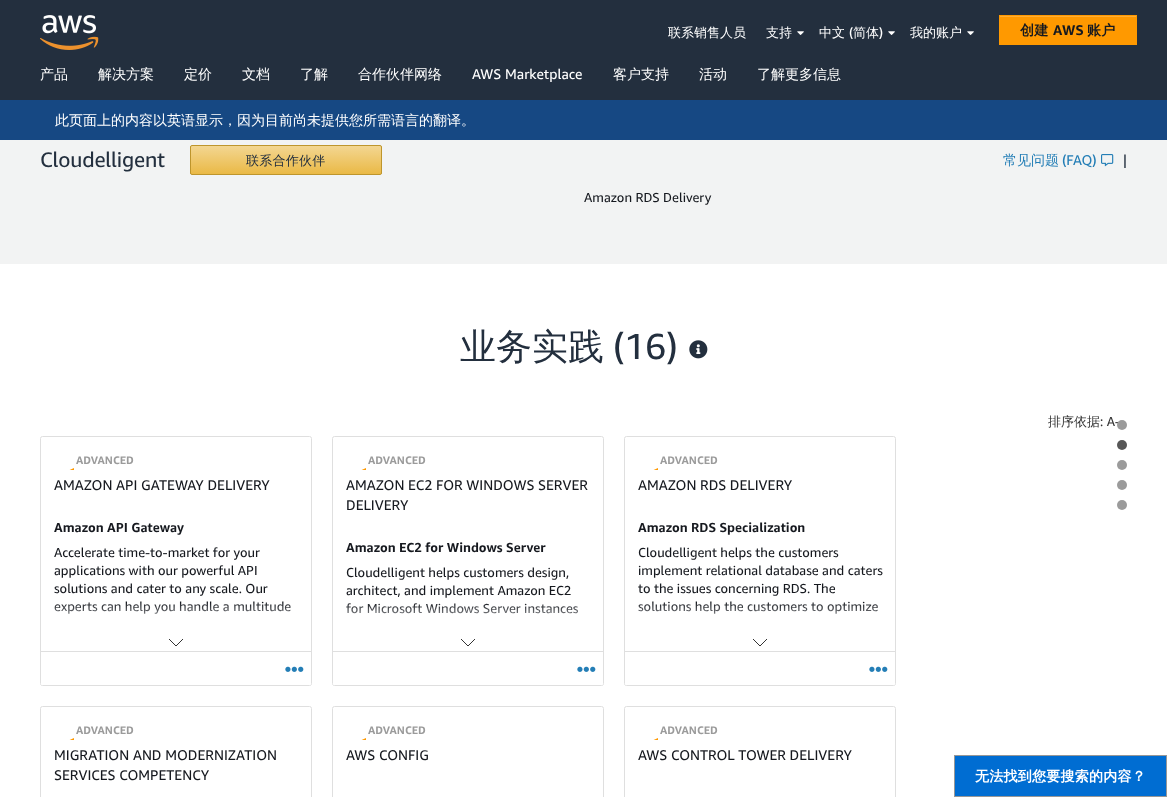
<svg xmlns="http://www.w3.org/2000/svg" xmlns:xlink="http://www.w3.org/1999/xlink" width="1167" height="797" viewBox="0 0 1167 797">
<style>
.cls-1{font:500 13px WenQuanYi Zen Hei;fill:#ffffff}
.cls-2{font:13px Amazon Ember;fill:#ffffff}
.cls-3{font:bold 14px WenQuanYi Zen Hei;letter-spacing:0.25px;fill:#16191f}
.cls-4{font:bold 14px Amazon Ember;letter-spacing:0.25px;fill:#16191f}
.cls-5{font:500 14px WenQuanYi Zen Hei;fill:#ffffff}
.cls-6{font:14px Amazon Ember;fill:#ffffff}
.cls-7{font:21px Amazon Ember;letter-spacing:-0.2px;fill:#232f3e}
.cls-8{font:500 13px WenQuanYi Zen Hei;letter-spacing:0.25px;fill:#232f3e}
.cls-9{font:500 14px WenQuanYi Zen Hei;fill:#247eb6}
.cls-10{font:14px Amazon Ember;fill:#247eb6}
.cls-11{font:14px Amazon Ember;fill:#232f3e}
.cls-12{font:13px Amazon Ember;fill:#16191f}
.cls-13{font:500 36px WenQuanYi Zen Hei;fill:#232f3e}
.cls-14{font:36px Amazon Ember;fill:#232f3e}
.cls-15{font:500 13px WenQuanYi Zen Hei;fill:#333333}
.cls-16{font:13px Amazon Ember;fill:#333333}
.cls-17{font:bold 11px Amazon Ember;fill:#9b9b9b}
.cls-18{font:14px Amazon Ember;fill:#16191f}
.cls-19{font:bold 13px Amazon Ember;fill:#16191f}
.cls-20{font:bold 14px WenQuanYi Zen Hei;letter-spacing:0.25px;fill:#ffffff}
</style>
<defs>
<clipPath id="clip1"><rect x="190" y="145" width="192" height="30" rx="2"/></clipPath>
<linearGradient id="g1" gradientUnits="userSpaceOnUse" x1="286" y1="146" x2="286" y2="174"><stop offset="0" stop-color="#f3d691"/><stop offset="1" stop-color="#eab946"/></linearGradient>
<clipPath id="clip2"><rect x="54" y="450" width="20" height="20"/></clipPath>
<clipPath id="clip3"><rect x="346" y="450" width="20" height="20"/></clipPath>
<clipPath id="clip4"><rect x="638" y="450" width="20" height="20"/></clipPath>
<clipPath id="clip5"><rect x="54" y="720" width="20" height="20"/></clipPath>
<clipPath id="clip6"><rect x="346" y="720" width="20" height="20"/></clipPath>
<clipPath id="clip7"><rect x="638" y="720" width="20" height="20"/></clipPath>
<linearGradient id="g2" gradientUnits="userSpaceOnUse" x1="176" y1="652" x2="176" y2="602"><stop offset="0.4" stop-color="#ffffff"/><stop offset="1" stop-color="#ffffff" stop-opacity="0"/></linearGradient>
<linearGradient id="g3" gradientUnits="userSpaceOnUse" x1="468" y1="652" x2="468" y2="602"><stop offset="0.4" stop-color="#ffffff"/><stop offset="1" stop-color="#ffffff" stop-opacity="0"/></linearGradient>
<linearGradient id="g4" gradientUnits="userSpaceOnUse" x1="760" y1="652" x2="760" y2="602"><stop offset="0.4" stop-color="#ffffff"/><stop offset="1" stop-color="#ffffff" stop-opacity="0"/></linearGradient>
</defs>
<rect width="100%" height="100%" fill="#ffffff"/>
<rect fill="#232f3e" x="0" y="0" width="1167" height="100"/>
<image xlink:href="image0.png" x="797" y="31" width="7" height="4"/>
<image xlink:href="image0.png" x="888" y="31" width="7" height="4"/>
<image xlink:href="image0.png" x="967" y="31" width="7" height="4"/>
<rect fill="#ff9900" x="999" y="15" width="138" height="30"/>
<rect fill="#ffad33" x="1000" y="16" width="136" height="1"/>
<image xlink:href="image1.png" x="40" y="15" width="59" height="35"/>
<rect fill="#164883" x="0" y="100" width="1167" height="40"/>
<rect fill="#f2f3f3" x="0" y="140" width="1167" height="124"/>
<g clip-path="url(#clip1)">
<rect fill="url(#g1)" x="190" y="146" width="192" height="28"/>
</g>
<rect fill="none" stroke="#be952c" x="190.5" y="145.5" width="191" height="29" rx="1.5"/>
<image xlink:href="image2.png" x="1101" y="154" width="13" height="13"/>
<image xlink:href="image3.png" x="689" y="340" width="19" height="19"/>
<rect fill="none" stroke="#dfdfdf" x="40.5" y="436.5" width="271" height="249" rx="2"/>
<g clip-path="url(#clip2)">
<path fill="#ff9902" fill-rule="evenodd" d="M115 450L56 476C47 537 66 577 115 594C161 577 180 538 172 476L115 450"/>
</g>
<path fill="none" stroke="#333333" d="M169 639L176 646L183 639"/>
<path fill="#ffffff" d="M41 651H311V683.5C311 684.5 310.5 685 309.5 685H42.5C41.5 685 41 684.5 41 683.5Z"/>
<rect fill="#dfdfdf" x="41" y="651" width="270" height="1"/>
<image xlink:href="image4.png" x="285" y="666" width="19" height="6"/>
<rect fill="none" stroke="#dfdfdf" x="332.5" y="436.5" width="271" height="249" rx="2"/>
<g clip-path="url(#clip3)">
<path fill="#ff9902" fill-rule="evenodd" d="M407 450L348 476C339 537 358 577 407 594C453 577 472 538 464 476L407 450"/>
</g>
<path fill="none" stroke="#333333" d="M461 639L468 646L475 639"/>
<path fill="#ffffff" d="M333 651H603V683.5C603 684.5 602.5 685 601.5 685H334.5C333.5 685 333 684.5 333 683.5Z"/>
<rect fill="#dfdfdf" x="333" y="651" width="270" height="1"/>
<image xlink:href="image4.png" x="577" y="666" width="19" height="6"/>
<rect fill="none" stroke="#dfdfdf" x="624.5" y="436.5" width="271" height="249" rx="2"/>
<g clip-path="url(#clip4)">
<path fill="#ff9902" fill-rule="evenodd" d="M699 450L640 476C631 537 650 577 699 594C745 577 764 538 756 476L699 450"/>
</g>
<path fill="none" stroke="#333333" d="M753 639L760 646L767 639"/>
<path fill="#ffffff" d="M625 651H895V683.5C895 684.5 894.5 685 893.5 685H626.5C625.5 685 625 684.5 625 683.5Z"/>
<rect fill="#dfdfdf" x="625" y="651" width="270" height="1"/>
<image xlink:href="image4.png" x="869" y="666" width="19" height="6"/>
<rect fill="none" stroke="#dfdfdf" x="40.5" y="706.5" width="271" height="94" rx="2"/>
<g clip-path="url(#clip5)">
<path fill="#ff9902" fill-rule="evenodd" d="M115 720L56 746C47 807 66 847 115 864C161 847 180 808 172 746L115 720"/>
</g>
<rect fill="none" stroke="#dfdfdf" x="332.5" y="706.5" width="271" height="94" rx="2"/>
<g clip-path="url(#clip6)">
<path fill="#ff9902" fill-rule="evenodd" d="M407 720L348 746C339 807 358 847 407 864C453 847 472 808 464 746L407 720"/>
</g>
<rect fill="none" stroke="#dfdfdf" x="624.5" y="706.5" width="271" height="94" rx="2"/>
<g clip-path="url(#clip7)">
<path fill="#ff9902" fill-rule="evenodd" d="M699 720L640 746C631 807 650 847 699 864C745 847 764 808 756 746L699 720"/>
</g>
<circle fill="#575757" cx="1122" cy="445" r="5"/>
<circle fill="#9b9b9b" cx="1122" cy="465" r="5"/>
<circle fill="#9b9b9b" cx="1122" cy="485" r="5"/>
<circle fill="#9b9b9b" cx="1122" cy="505" r="5"/>
<rect fill="#006dd2" stroke="#979797" x="954.5" y="755.5" width="212" height="41"/>
<text class="cls-1" x="668" y="37">联系销售人员</text>
<text class="cls-1" x="766" y="37">支持</text>
<text class="cls-1" x="819" y="37">中文</text>
<text class="cls-2" x="849" y="37">(</text>
<text class="cls-1" x="853" y="37">简体</text>
<text class="cls-2" x="879" y="37">)</text>
<text class="cls-1" x="910" y="37">我的账户</text>
<text class="cls-3" x="1020" y="35">创建</text>
<text class="cls-4" x="1053" y="35">AWS</text>
<text class="cls-3" x="1087" y="35">账户</text>
<text class="cls-5" x="40" y="79">产品</text>
<text class="cls-5" x="98" y="79">解决方案</text>
<text class="cls-5" x="184" y="79">定价</text>
<text class="cls-5" x="242" y="79">文档</text>
<text class="cls-5" x="300" y="79">了解</text>
<text class="cls-5" x="358" y="79">合作伙伴网络</text>
<text class="cls-6" x="472" y="79">AWS Marketplace</text>
<text class="cls-5" x="613" y="79">客户支持</text>
<text class="cls-5" x="699" y="79">活动</text>
<text class="cls-5" x="757" y="79">了解更多信息</text>
<text class="cls-5" x="55" y="125">此页面上的内容以英语显示，因为目前尚未提供您所需语言的翻译。</text>
<text class="cls-7" x="40" y="167">Cloudelligent</text>
<text class="cls-8" x="246" y="165">联系合作伙伴</text>
<text class="cls-9" x="1003" y="165">常见问题</text>
<text class="cls-10" x="1062" y="165">(FAQ)</text>
<text class="cls-11" x="1123" y="165">|</text>
<text class="cls-12" x="584" y="202">Amazon RDS Delivery</text>
<text class="cls-13" x="460" y="359">业务实践</text>
<text class="cls-14" x="613" y="359">(16)</text>
<text class="cls-15" x="1048" y="426">排序依据</text>
<text class="cls-16" x="1100" y="426">: A-</text>
<text class="cls-17" x="76" y="464">ADVANCED</text>
<text class="cls-18" x="54" y="490">AMAZON API GATEWAY DELIVERY</text>
<text class="cls-19" x="54" y="532">Amazon API Gateway</text>
<text class="cls-12"><tspan x="54" y="557">Accelerate time-to-market for your</tspan><tspan x="54" y="575">applications with our powerful API</tspan><tspan x="54" y="593">solutions and cater to any scale. Our</tspan><tspan x="54" y="611">experts can help you handle a multitude</tspan></text>
<rect fill="url(#g2)" x="54" y="603" width="237" height="11"/>
<text class="cls-17" x="368" y="464">ADVANCED</text>
<text class="cls-18"><tspan x="346" y="490">AMAZON EC2 FOR WINDOWS SERVER</tspan><tspan x="346" y="510">DELIVERY</tspan></text>
<text class="cls-19" x="346" y="552">Amazon EC2 for Windows Server</text>
<text class="cls-12"><tspan x="346" y="577">Cloudelligent helps customers design,</tspan><tspan x="346" y="595">architect, and implement Amazon EC2</tspan><tspan x="346" y="613">for Microsoft Windows Server instances</tspan></text>
<rect fill="url(#g3)" x="345" y="603" width="233" height="11"/>
<text class="cls-17" x="660" y="464">ADVANCED</text>
<text class="cls-18" x="638" y="490">AMAZON RDS DELIVERY</text>
<text class="cls-19" x="638" y="532">Amazon RDS Specialization</text>
<text class="cls-12"><tspan x="638" y="557">Cloudelligent helps the customers</tspan><tspan x="638" y="575">implement relational database and caters</tspan><tspan x="638" y="593">to the issues concerning RDS. The</tspan><tspan x="638" y="611">solutions help the customers to optimize</tspan></text>
<rect fill="url(#g4)" x="638" y="603" width="240" height="11"/>
<text class="cls-17" x="76" y="734">ADVANCED</text>
<text class="cls-18"><tspan x="54" y="760">MIGRATION AND MODERNIZATION</tspan><tspan x="54" y="780">SERVICES COMPETENCY</tspan></text>
<text class="cls-17" x="368" y="734">ADVANCED</text>
<text class="cls-18" x="346" y="760">AWS CONFIG</text>
<text class="cls-17" x="660" y="734">ADVANCED</text>
<text class="cls-18" x="638" y="760">AWS CONTROL TOWER DELIVERY</text>
<circle fill="#9b9b9b" cx="1122" cy="425" r="5"/>
<text class="cls-20" x="975" y="781">无法找到您要搜索的内容？</text>
</svg>
